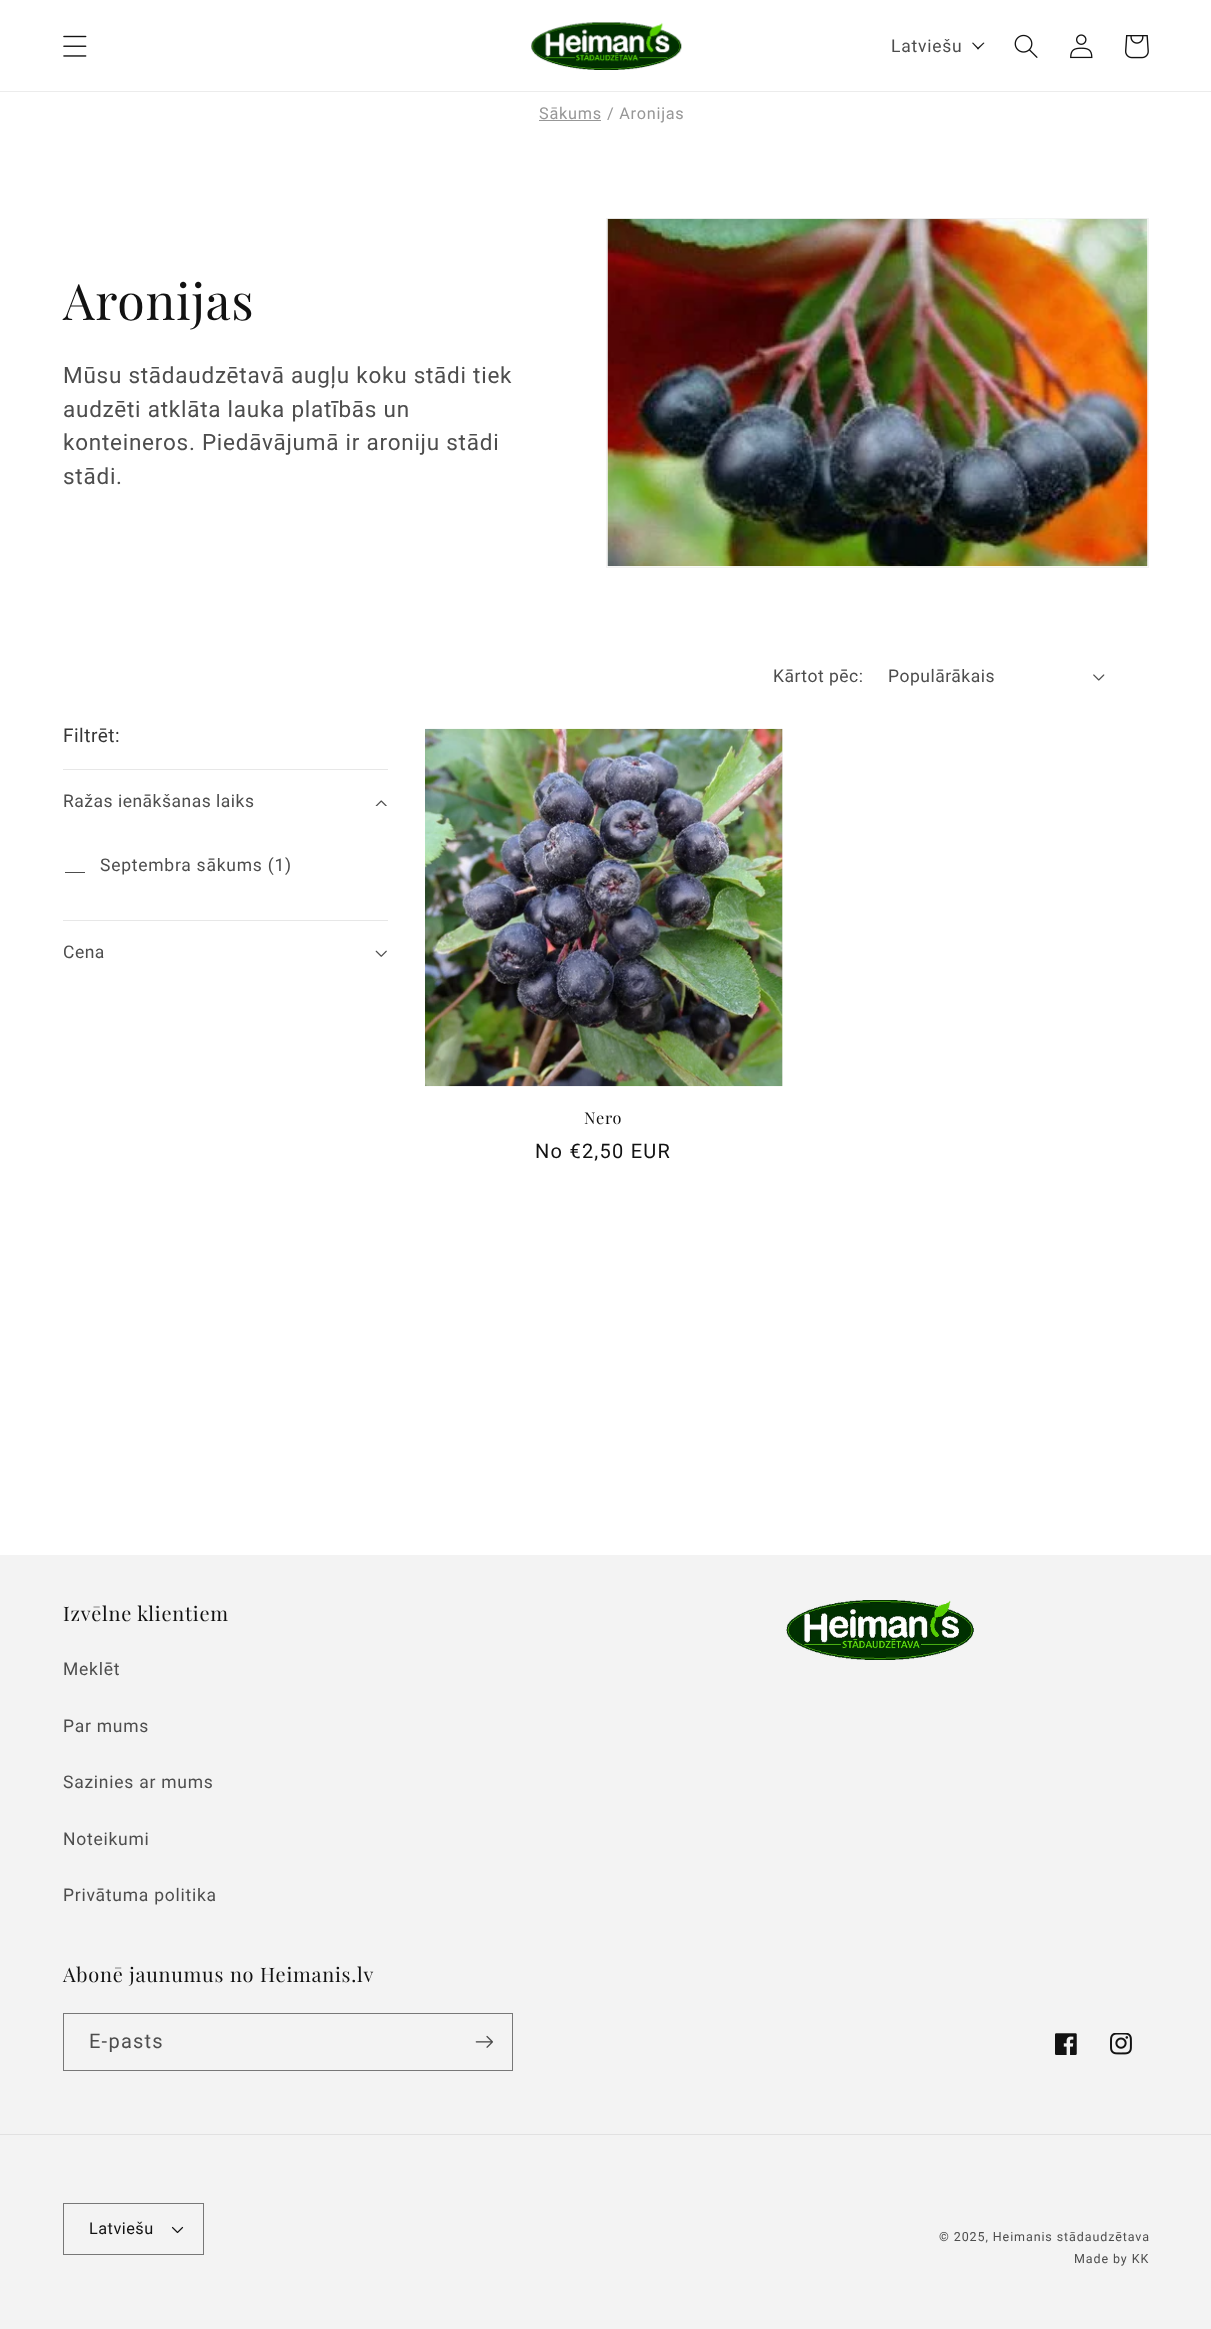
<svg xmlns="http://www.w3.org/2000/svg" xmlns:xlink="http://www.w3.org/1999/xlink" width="1211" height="2329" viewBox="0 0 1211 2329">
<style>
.cls-1{font:17.5px Roboto;letter-spacing:0.75px;fill:#4d4d4d}
.cls-2{font:16.25px Roboto;letter-spacing:0.75px;fill:#979797}
.cls-3{font:50px Playfair Display;letter-spacing:0.75px;fill:#121212}
.cls-4{font:22.5px Roboto;letter-spacing:0.75px;fill:#4d4d4d}
.cls-5{font:17.5px Roboto;letter-spacing:0.5px;fill:#4d4d4d}
.cls-6{font:19px Roboto;letter-spacing:0.5px;fill:#363636}
.cls-7{font:16.25px Playfair Display;letter-spacing:0.75px;fill:#121212}
.cls-8{font:20px Roboto;letter-spacing:1.25px;fill:#121212}
.cls-9{font:20px Playfair Display;letter-spacing:0.75px;fill:#121212}
.cls-10{font:20px Roboto;letter-spacing:1.25px;fill:#4d4d4d}
.cls-11{font:16.25px Roboto;letter-spacing:0.5px;fill:#121212}
.cls-12{font:12.5px Roboto;letter-spacing:0.9px;fill:#4d4d4d}
</style>
<defs>
<clipPath id="clip1"><rect x="65" y="853" width="20" height="20"/></clipPath>
</defs>
<rect width="100%" height="100%" fill="#ffffff"/>
<rect fill="#ececec" x="0" y="91" width="1211" height="1"/>
<image xlink:href="image0.png" x="63" y="35" width="24" height="22"/>
<image xlink:href="image1.png" x="531" y="22" width="151" height="48"/>
<path fill="#1a1a1a" d="M983.5 42.5L984.5 43L978 49.5L977 48.5Z"/>
<path fill="#1a1a1a" d="M973 42.5L979 48.5L978 49.5L972 43Z"/>
<image xlink:href="image2.png" x="1014" y="34" width="24" height="24"/>
<image xlink:href="image3.png" x="1070" y="34" width="23" height="25"/>
<image xlink:href="image4.png" x="1125" y="35" width="24" height="24"/>
<rect fill="#979797" x="539" y="120" width="62" height="1"/>
<rect fill="none" stroke="#f3f3f3" x="606.5" y="218.5" width="542" height="349"/>
<image xlink:href="image5.png" x="607" y="218" width="541" height="349"/>
<image xlink:href="image6.png" x="1093" y="674" width="12" height="7"/>
<rect fill="#e7e7e7" x="63" y="769" width="325" height="1"/>
<image xlink:href="image7.png" x="375" y="800" width="12" height="6"/>
<g clip-path="url(#clip1)">
<rect fill="none" stroke="#4d4d4d" x="64.5" y="852.5" width="21" height="20"/>
</g>
<rect fill="#e7e7e7" x="63" y="920" width="325" height="1"/>
<image xlink:href="image8.png" x="375" y="950" width="12" height="7"/>
<rect fill="#f3f3f3" x="782" y="729" width="1" height="357"/>
<image xlink:href="image9.png" x="425" y="728" width="358" height="359"/>
<rect fill="#f3f3f3" x="0" y="1555" width="1211" height="774"/>
<image xlink:href="image10.png" x="786" y="1600" width="188" height="60"/>
<rect fill="none" stroke="#777777" x="63.5" y="2013.5" width="449" height="57"/>
<image xlink:href="image11.png" x="475" y="2035" width="18" height="13"/>
<image xlink:href="image12.png" x="1055" y="2033" width="22" height="22"/>
<image xlink:href="image13.png" x="1110" y="2033" width="22" height="22"/>
<rect fill="#e1e1e1" x="0" y="2134" width="1211" height="1"/>
<image xlink:href="image14.png" x="171" y="2226" width="13" height="8"/>
<rect fill="none" stroke="#777777" x="63.5" y="2203.5" width="140" height="51"/>
<text class="cls-1" x="891" y="52">Latviešu</text>
<text class="cls-2" x="539" y="119">Sākums</text>
<text class="cls-2" x="607" y="119">/ Aronijas</text>
<text class="cls-3" x="63" y="320">Aronijas</text>
<text class="cls-4"><tspan x="63" y="383">Mūsu stādaudzētavā augļu koku stādi tiek</tspan><tspan x="63" y="417">audzēti atklāta lauka platībās un</tspan><tspan x="63" y="450">konteineros. Piedāvājumā ir aroniju stādi</tspan><tspan x="63" y="484">stādi.</tspan></text>
<text class="cls-5" x="773" y="682">Kārtot pēc:</text>
<text class="cls-5" x="888" y="682">Populārākais</text>
<text class="cls-6" x="63" y="742">Filtrēt:</text>
<text class="cls-5" x="63" y="807">Ražas ienākšanas laiks</text>
<text class="cls-1" x="100" y="871">Septembra sākums (1)</text>
<text class="cls-5" x="63" y="958">Cena</text>
<text class="cls-7" x="584" y="1124">Nero</text>
<text class="cls-8" x="535" y="1158">No €2,50 EUR</text>
<text class="cls-9" x="63" y="1621">Izvēlne klientiem</text>
<text class="cls-1" x="63" y="1675">Meklēt</text>
<text class="cls-1" x="63" y="1732">Par mums</text>
<text class="cls-1" x="63" y="1788">Sazinies ar mums</text>
<text class="cls-1" x="63" y="1845">Noteikumi</text>
<text class="cls-1" x="63" y="1901">Privātuma politika</text>
<text class="cls-9" x="63" y="1982">Abonē jaunumus no Heimanis.lv</text>
<text class="cls-10" x="89" y="2048">E-pasts</text>
<text class="cls-11" x="89" y="2234">Latviešu</text>
<text class="cls-12" x="939" y="2241">© 2025, Heimanis stādaudzētava</text>
<text class="cls-12" x="1074" y="2263">Made by KK</text>
</svg>
